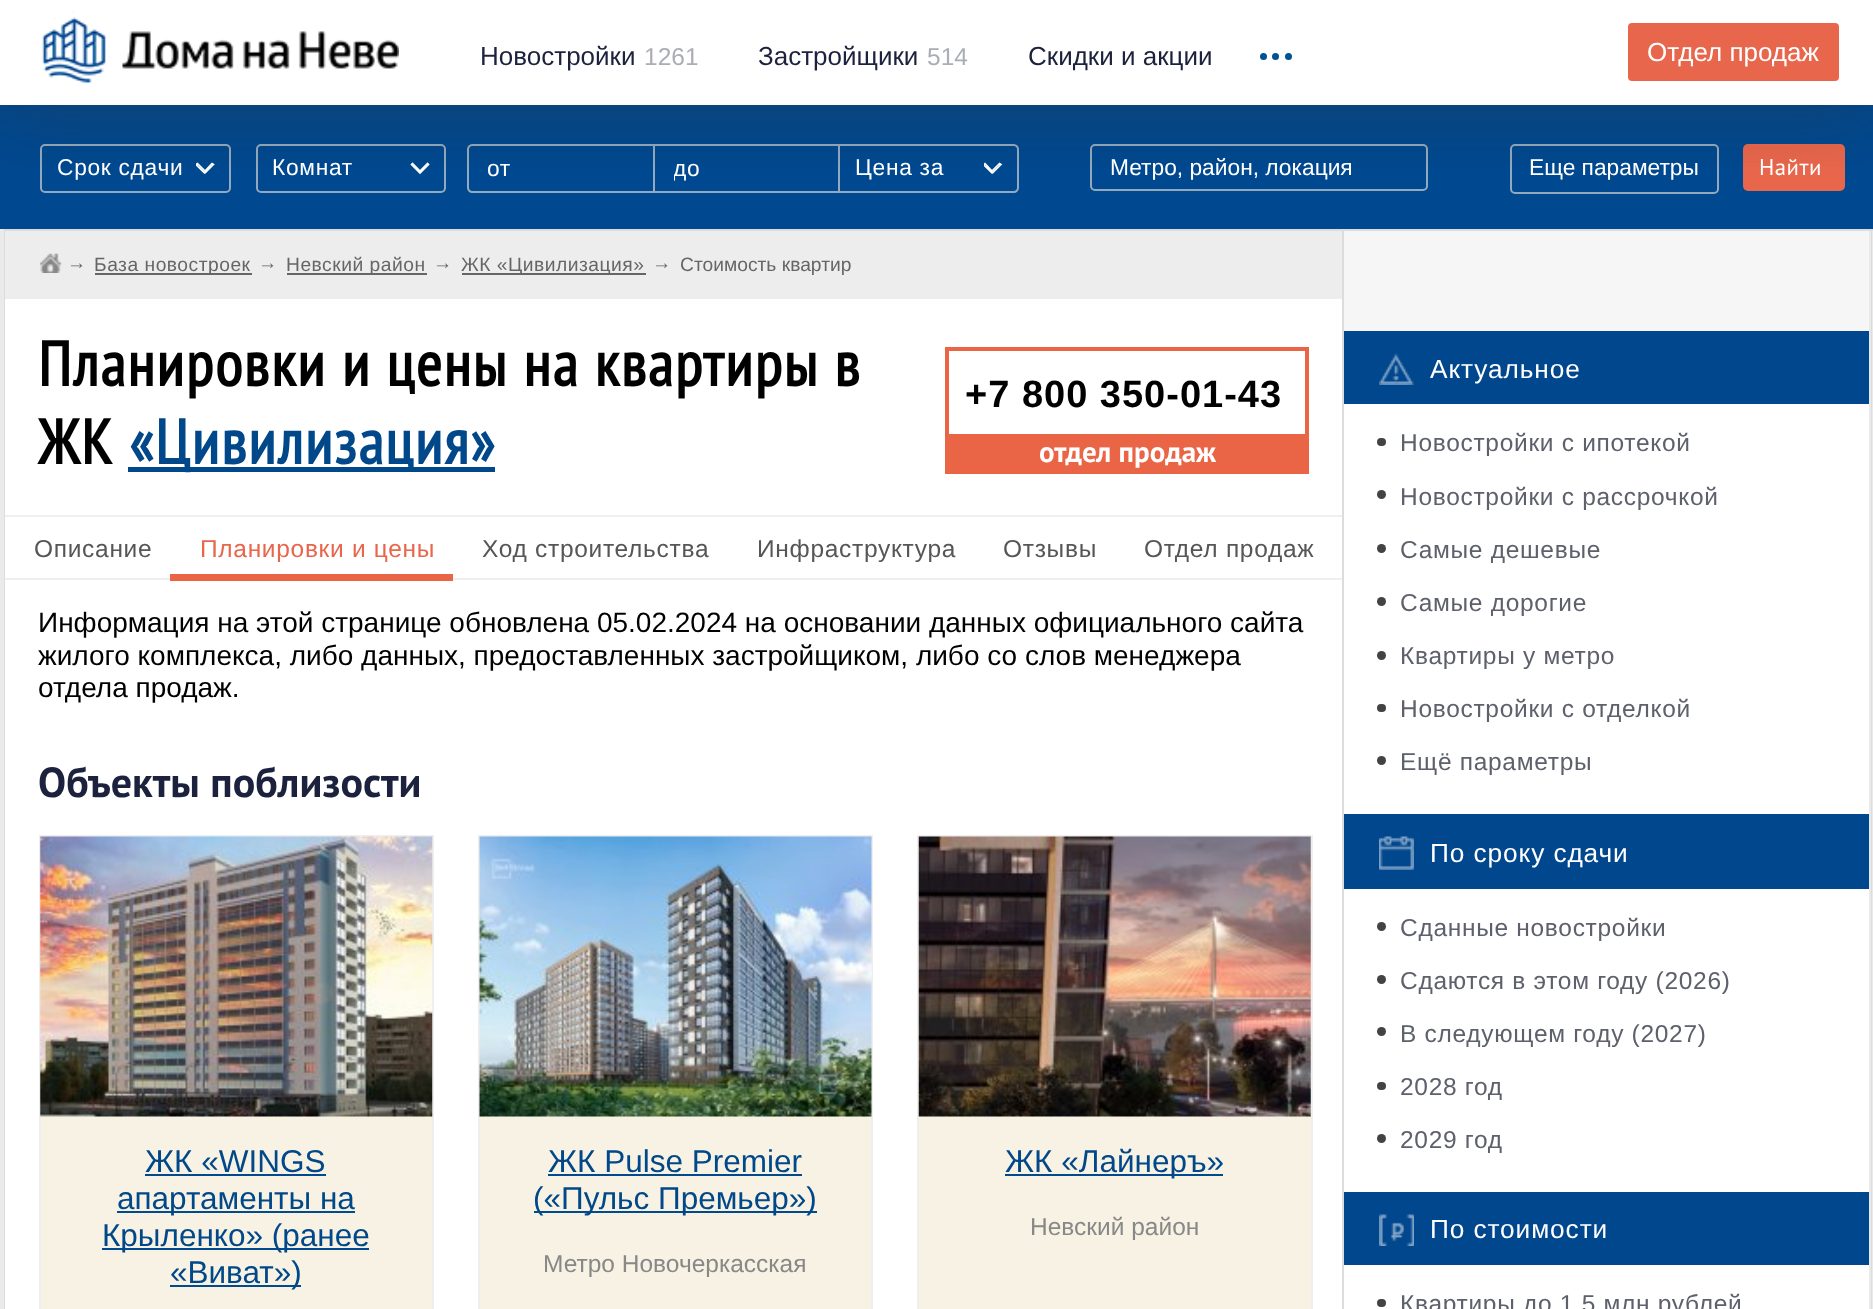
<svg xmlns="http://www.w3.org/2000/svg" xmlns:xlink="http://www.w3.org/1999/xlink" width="1873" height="1309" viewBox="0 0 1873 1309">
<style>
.cls-1{font:26px Liberation Sans;fill:#1c223d}
.cls-2{font:24.5px Liberation Sans;fill:#abadb6}
.cls-3{font:26px Liberation Sans;fill:#ffffff}
.cls-4{font:22.75px Liberation Sans;letter-spacing:0.7px;fill:#ffffff}
.cls-5{font:22.75px Liberation Sans;fill:#ffffff}
.cls-6{font:22.75px PT Sans;letter-spacing:0.5px;fill:#ffffff}
.cls-7{font:19.25px Liberation Sans;fill:#666666}
.cls-8{font:19.25px Liberation Sans;letter-spacing:0.5px;fill:#666666}
.cls-9{font:bold 63px PT Sans Narrow;letter-spacing:1.75px;fill:#000000}
.cls-10{font:bold 63px PT Sans Narrow;letter-spacing:1.75px;fill:#004889}
.cls-11{font:bold 38px Liberation Sans;letter-spacing:1px;fill:#000000}
.cls-12{font:bold 29px PT Sans;fill:#ffffff}
.cls-13{font:24.5px Liberation Sans;letter-spacing:0.7px;fill:#565656}
.cls-14{font:24.5px Liberation Sans;letter-spacing:0.7px;fill:#e8664b}
.cls-15{font:28px Liberation Sans;fill:#000000}
.cls-16{font:bold 42px PT Sans;fill:#1c223d}
.cls-17{font:31.5px Liberation Sans;fill:#004889}
.cls-18{font:24.5px Liberation Sans;fill:#888888}
.cls-19{font:26.25px Liberation Sans;letter-spacing:0.9px;fill:#ffffff}
.cls-20{font:24.5px Liberation Sans;letter-spacing:0.7px;fill:#5e616c}
</style>
<defs>
<clipPath id="clip1"><rect x="196" y="161" width="21" height="14"/></clipPath>
<clipPath id="clip2"><rect x="984" y="161" width="21" height="14"/></clipPath>
<clipPath id="clip3"><rect x="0" y="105" width="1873" height="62"/></clipPath>
<clipPath id="clip4"><rect x="674" y="156" width="145" height="26"/></clipPath>
</defs>
<rect width="100%" height="100%" fill="#ffffff"/>
<rect fill="#00488f" x="0" y="105" width="1873" height="124"/>
<rect fill="none" stroke="#93a9bd" stroke-width="2" x="41" y="145" width="189" height="47" rx="4"/>
<g clip-path="url(#clip1)">
<path fill="none" stroke="#ffffff" stroke-width="1.7" d="M196 164.5L197.5 163.5L205 171L212 163.5L213.5 164.5L205 173H204.5Z"/>
</g>
<rect fill="none" stroke="#93a9bd" stroke-width="2" x="257" y="145" width="188" height="47" rx="4"/>
<path fill="none" stroke="#ffffff" stroke-width="1.7" d="M411.5 164.5L412.5 163.5L420 171L427.5 163.5L428.5 164.5L420 173Z"/>
<path fill="none" stroke="#93a9bd" stroke-width="2" d="M472 145H654V192H472C470 192 468 190 468 188V149C468 147 470 145 472 145Z"/>
<rect fill="none" stroke="#93a9bd" stroke-width="2" x="654" y="145" width="185" height="47"/>
<path fill="none" stroke="#93a9bd" stroke-width="2" d="M839 145H1014C1016 145 1018 147 1018 149V188C1018 190 1016 192 1014 192H839Z"/>
<g clip-path="url(#clip2)">
<path fill="none" stroke="#ffffff" stroke-width="1.7" d="M983.5 164.5L985 163.5L992 171L999.5 163.5L1001 164.5L992.5 173H992Z"/>
</g>
<rect fill="none" stroke="#93a9bd" stroke-width="2" x="1091" y="145" width="336" height="45" rx="4"/>
<rect fill="none" stroke="#93a9bd" stroke-width="2" x="1511" y="145" width="207" height="48" rx="4"/>
<rect fill="#e8664b" x="1743" y="144" width="102" height="47" rx="5"/>
<g clip-path="url(#clip3)">
<rect fill="#323232" fill-opacity="0.3" filter="blur(35px)" x="0" y="9" width="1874" height="105"/>
</g>
<image xlink:href="image0.png" x="39" y="10" width="360" height="74"/>
<circle fill="#005292" cx="1263.5" cy="56.5" r="3.5"/>
<circle fill="#005292" cx="1275.5" cy="56.5" r="3.5"/>
<circle fill="#005292" cx="1288.5" cy="56.5" r="3.5"/>
<rect fill="#e8664b" x="1628" y="23" width="211" height="58" rx="4"/>
<rect fill="#eaeaea" x="0" y="229" width="1873" height="1080"/>
<rect fill="#dcdcdc" x="4" y="229" width="1869" height="2"/>
<path fill="#dcdcdc" d="M1872 229V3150L1871 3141V231Z"/>
<path fill="#dcdcdc" d="M4 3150V229L5 231V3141Z"/>
<rect fill="#ffffff" x="5" y="299" width="1337" height="1010"/>
<rect fill="#dcdcdc" x="1342" y="231" width="2" height="1078"/>
<rect fill="#ededed" x="5" y="231" width="1337" height="68"/>
<image xlink:href="image1.png" x="40" y="253" width="22" height="20"/>
<rect fill="#666666" x="95" y="273" width="157" height="2"/>
<rect fill="#666666" x="287" y="273" width="140" height="2"/>
<rect fill="#666666" x="462" y="273" width="184" height="2"/>
<rect fill="#004889" x="128" y="467" width="367" height="5"/>
<rect fill="none" stroke="#ea6545" stroke-width="4" x="947" y="349" width="360" height="123"/>
<rect fill="#ea6545" x="949" y="434" width="356" height="36"/>
<rect fill="#efefef" x="5" y="515" width="1337" height="2"/>
<rect fill="#efefef" x="5" y="578" width="1337" height="2"/>
<rect fill="#ea6545" x="170" y="574" width="283" height="7"/>
<rect fill="#f7f2e3" x="41" y="1116" width="391" height="193"/>
<rect fill="none" stroke="#eeeeee" stroke-width="2" x="40" y="836" width="393" height="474"/>
<image xlink:href="image2.png" x="40" y="836" width="393" height="281"/>
<rect fill="#004a8d" x="145" y="1174" width="181" height="2"/>
<rect fill="#004a8d" x="117" y="1211" width="238" height="2"/>
<rect fill="#004a8d" x="102" y="1248" width="267" height="2"/>
<rect fill="#004a8d" x="170" y="1285" width="131" height="2"/>
<rect fill="#f7f2e3" x="480" y="1116" width="391" height="193"/>
<rect fill="none" stroke="#eeeeee" stroke-width="2" x="479" y="836" width="393" height="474"/>
<image xlink:href="image3.png" x="479" y="836" width="393" height="281"/>
<rect fill="#004a8d" x="548" y="1174" width="254" height="2"/>
<rect fill="#004a8d" x="534" y="1211" width="283" height="2"/>
<rect fill="#f7f2e3" stroke="#eeeeee" stroke-width="2" x="918" y="836" width="394" height="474"/>
<image xlink:href="image4.png" x="918" y="836" width="393" height="281"/>
<rect fill="#004a8d" x="1005" y="1174" width="218" height="2"/>
<rect fill="#f6f6f6" x="1344" y="231" width="525" height="100"/>
<rect fill="#ffffff" x="1344" y="404" width="525" height="905"/>
<rect fill="#00478e" x="1344" y="331" width="525" height="73"/>
<image xlink:href="image5.png" x="1379" y="353" width="35" height="32"/>
<rect fill="#434343" x="1377" y="438" width="9" height="8" rx="4"/>
<circle fill="#434343" cx="1381.5" cy="494.5" r="4.5"/>
<circle fill="#434343" cx="1381.5" cy="548.5" r="4.5"/>
<circle fill="#434343" cx="1381.5" cy="601.5" r="4.5"/>
<circle fill="#434343" cx="1381.5" cy="655.5" r="4.5"/>
<rect fill="#434343" x="1377" y="704" width="9" height="8" rx="4"/>
<circle fill="#434343" cx="1381.5" cy="760.5" r="4.5"/>
<rect fill="#00478e" x="1344" y="814" width="525" height="75"/>
<image xlink:href="image6.png" x="1379" y="836" width="35" height="34"/>
<circle fill="#434343" cx="1381.5" cy="926.5" r="4.5"/>
<circle fill="#434343" cx="1381.5" cy="979.5" r="4.5"/>
<circle fill="#434343" cx="1381.5" cy="1031.5" r="4.5"/>
<rect fill="#434343" x="1377" y="1082" width="9" height="8" rx="4"/>
<circle fill="#434343" cx="1381.5" cy="1138.5" r="4.5"/>
<rect fill="#00478e" x="1344" y="1192" width="525" height="73"/>
<image xlink:href="image7.png" x="1379" y="1214" width="35" height="32"/>
<rect fill="#434343" x="1377" y="1299" width="9" height="8" rx="4"/>
<text class="cls-1" x="480" y="65">Новостройки</text>
<text class="cls-2" x="644" y="65">1261</text>
<text class="cls-1" x="758" y="65">Застройщики</text>
<text class="cls-2" x="927" y="65">514</text>
<text class="cls-1" x="1028" y="65">Скидки и акции</text>
<text class="cls-3" x="1647" y="61">Отдел продаж</text>
<text class="cls-4" x="57" y="175">Срок сдачи</text>
<text class="cls-4" x="272" y="175">Комнат</text>
<text class="cls-4" x="487" y="176">от</text>
<g clip-path="url(#clip4)">
<text class="cls-4" x="673" y="176">до</text>
</g>
<text class="cls-4" x="855" y="175">Цена за</text>
<text class="cls-5" x="1110" y="175">Метро, район, локация</text>
<text class="cls-5" x="1529" y="175">Еще параметры</text>
<text class="cls-6" x="1759" y="175">Найти</text>
<text class="cls-7" x="67" y="269">→</text>
<text class="cls-8" x="94" y="271">База новостроек</text>
<text class="cls-7" x="258" y="269">→</text>
<text class="cls-8" x="286" y="271">Невский район</text>
<text class="cls-7" x="433" y="269">→</text>
<text class="cls-8" x="461" y="271">ЖК «Цивилизация»</text>
<text class="cls-7" x="652" y="269">→</text>
<text class="cls-7" x="680" y="271">Стоимость квартир</text>
<text class="cls-9"><tspan x="38" y="386">Планировки и цены на квартиры в</tspan><tspan x="38" y="464">ЖК</tspan></text>
<text class="cls-10" x="129" y="464">«Цивилизация»</text>
<text class="cls-11" x="965" y="407">+7 800 350-01-43</text>
<text class="cls-12" x="1039" y="462">отдел продаж</text>
<text class="cls-13" x="34" y="557">Описание</text>
<text class="cls-14" x="200" y="557">Планировки и цены</text>
<text class="cls-13" x="482" y="557">Ход строительства</text>
<text class="cls-13" x="757" y="557">Инфраструктура</text>
<text class="cls-13" x="1003" y="557">Отзывы</text>
<text class="cls-13" x="1144" y="557">Отдел продаж</text>
<text class="cls-15"><tspan x="38" y="632">Информация на этой странице обновлена 05.02.2024 на основании данных официального сайта</tspan><tspan x="38" y="665">жилого комплекса, либо данных, предоставленных застройщиком, либо со слов менеджера</tspan><tspan x="38" y="697">отдела продаж.</tspan></text>
<text class="cls-16" x="38" y="797">Объекты поблизости</text>
<text class="cls-17" x="145" y="1172">ЖК «WINGS</text>
<text class="cls-17" x="117" y="1209">апартаменты на</text>
<text class="cls-17" x="102" y="1246">Крыленко» (ранее</text>
<text class="cls-17" x="170" y="1283">«Виват»)</text>
<text class="cls-17" x="548" y="1172">ЖК Pulse Premier</text>
<text class="cls-17" x="533" y="1209">(«Пульс Премьер»)</text>
<text class="cls-18" x="543" y="1272">Метро Новочеркасская</text>
<text class="cls-17" x="1005" y="1172">ЖК «Лайнеръ»</text>
<text class="cls-18" x="1030" y="1235">Невский район</text>
<text class="cls-19" x="1430" y="378">Актуальное</text>
<text class="cls-20" x="1400" y="451">Новостройки с ипотекой</text>
<text class="cls-20" x="1400" y="505">Новостройки с рассрочкой</text>
<text class="cls-20" x="1400" y="558">Самые дешевые</text>
<text class="cls-20" x="1400" y="611">Самые дорогие</text>
<text class="cls-20" x="1400" y="664">Квартиры у метро</text>
<text class="cls-20" x="1400" y="717">Новостройки с отделкой</text>
<text class="cls-20" x="1400" y="770">Ещё параметры</text>
<text class="cls-19" x="1430" y="862">По сроку сдачи</text>
<text class="cls-20" x="1400" y="936">Сданные новостройки</text>
<text class="cls-20" x="1400" y="989">Сдаются в этом году (2026)</text>
<text class="cls-20" x="1400" y="1042">В следующем году (2027)</text>
<text class="cls-20" x="1400" y="1095">2028 год</text>
<text class="cls-20" x="1400" y="1148">2029 год</text>
<text class="cls-19" x="1430" y="1238">По стоимости</text>
<text class="cls-20" x="1400" y="1312">Квартиры до 1,5 млн рублей</text>
</svg>
